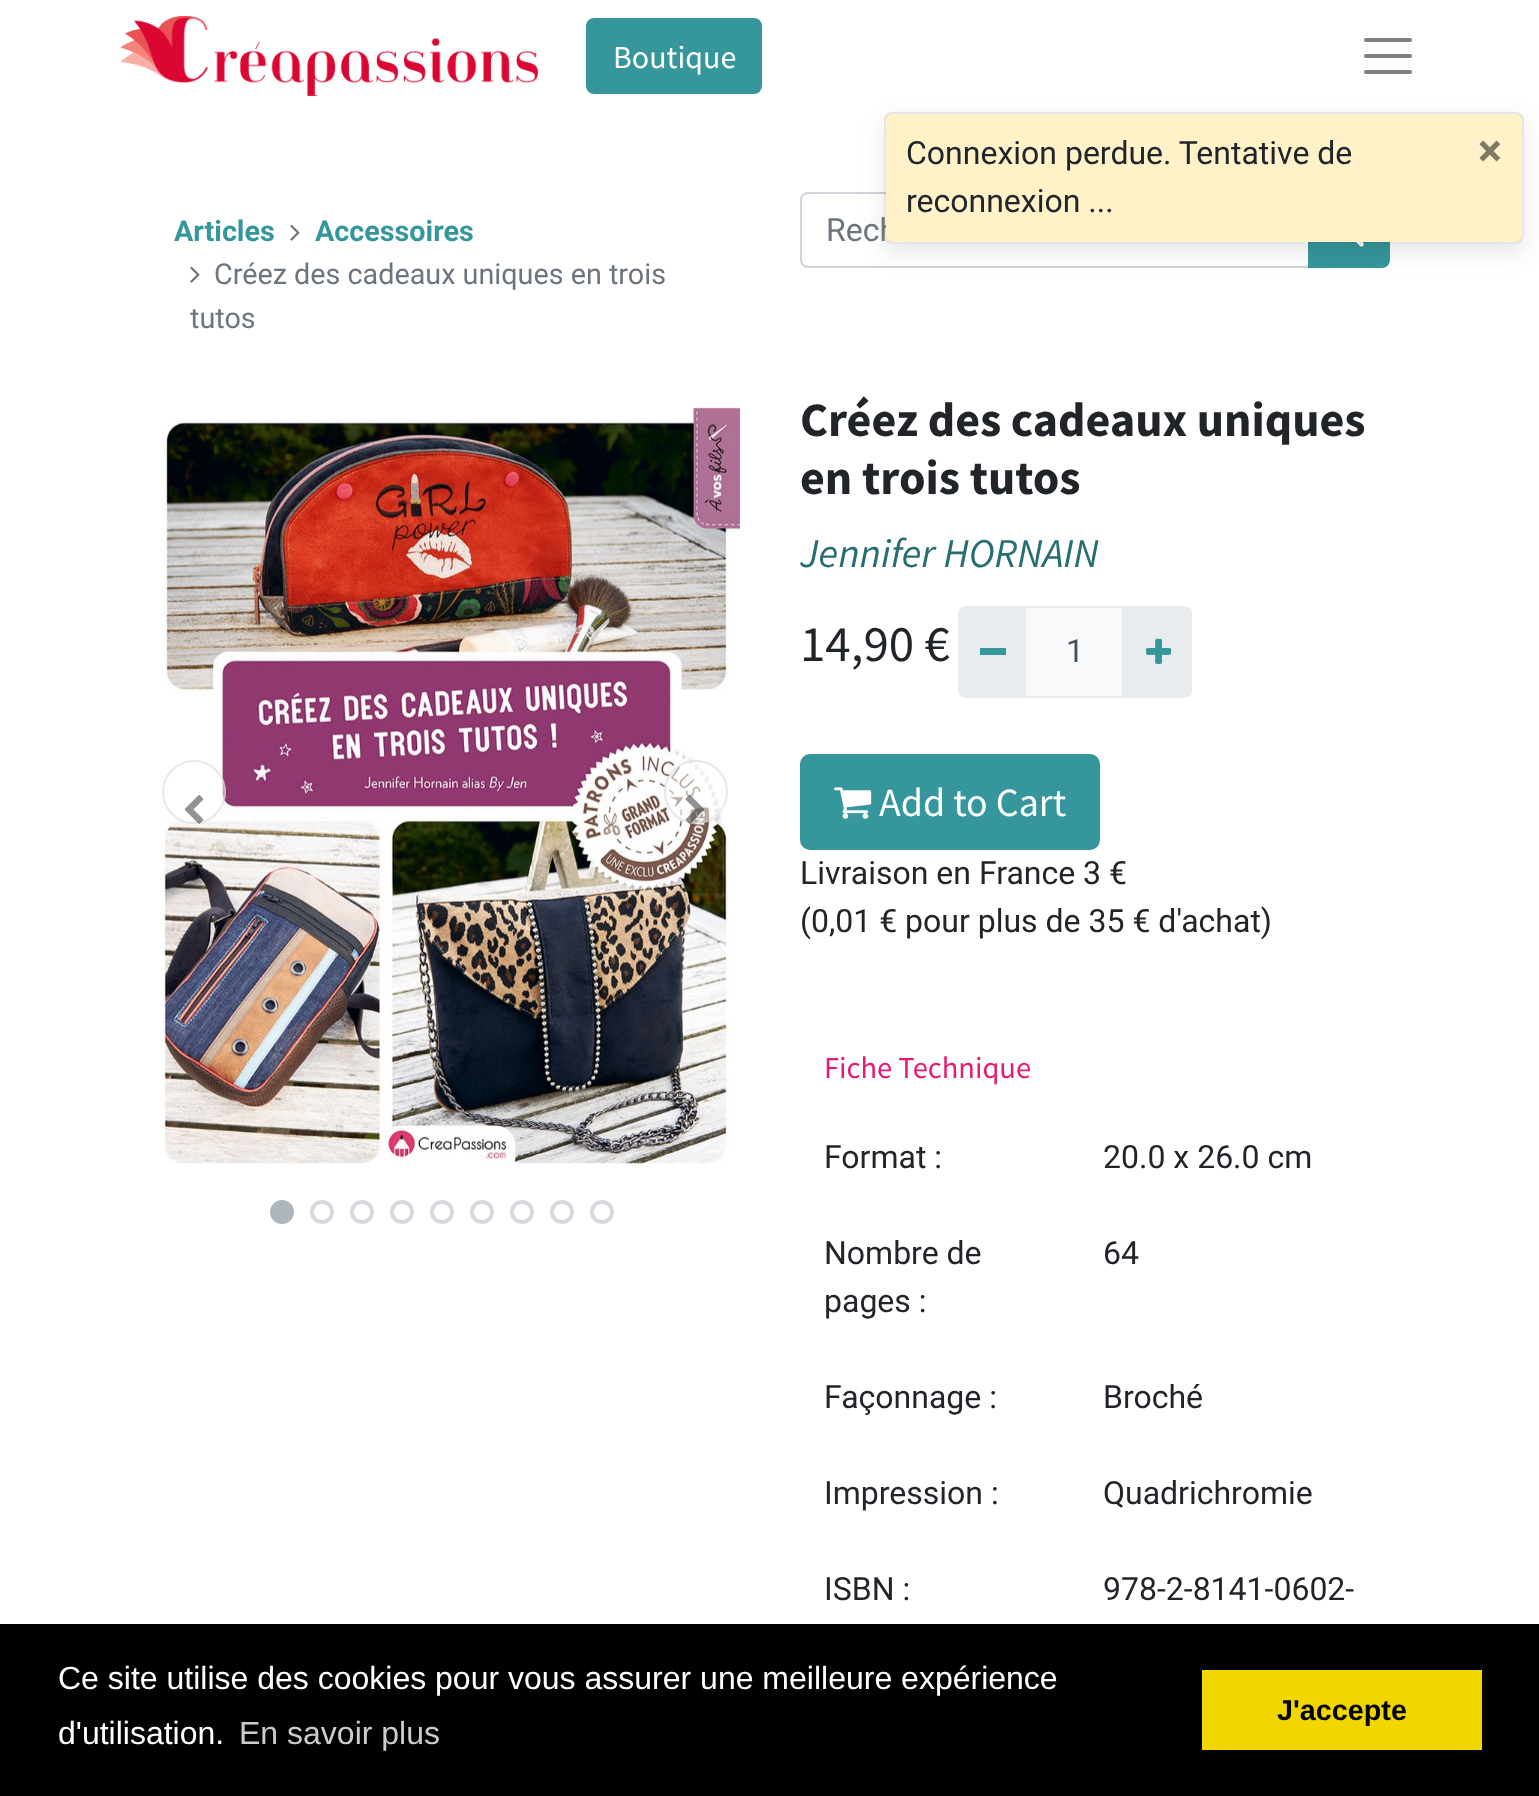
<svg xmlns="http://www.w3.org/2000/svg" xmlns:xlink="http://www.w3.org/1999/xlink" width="1539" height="1796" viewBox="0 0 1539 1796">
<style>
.cls-1{font:32px Source Sans Pro;fill:#ffffff}
.cls-2{font:bold 28.75px Roboto;fill:#35979c}
.cls-3{font:28.75px Roboto;fill:#6c757d}
.cls-4{font:32px Roboto;fill:#6c757d}
.cls-5{font:bold 48px Source Sans Pro;fill:#212529}
.cls-6{font:italic 40.75px Source Sans Pro;fill:#276e72}
.cls-7{font:51px Source Sans Pro;fill:#212529}
.cls-8{font:32px Roboto;fill:#495057}
.cls-9{font:40px Source Sans Pro;fill:#ffffff}
.cls-10{font:32px Roboto;fill:#212529}
.cls-11{font:30.5px Source Sans Pro;fill:#e81a74}
.cls-12{font:bold 45px Roboto;fill:#807964}
.cls-13{font:32px Liberation Sans;fill:#ffffff}
.cls-14{font:32px Liberation Sans;fill:#cccccc}
.cls-15{font:bold 28.75px Liberation Sans;fill:#000000}
</style>
<defs>
<clipPath id="clip1"><path d="M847 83H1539V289H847ZM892 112H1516C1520.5 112 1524 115.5 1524 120V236C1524 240.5 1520.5 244 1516 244H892C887.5 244 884 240.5 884 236V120C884 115.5 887.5 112 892 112Z" clip-rule="evenodd"/></clipPath>
</defs>
<rect width="100%" height="100%" fill="#ffffff"/>
<image xlink:href="image0.png" x="120" y="16" width="418" height="80"/>
<rect fill="#35979c" stroke="#35979c" stroke-width="2" x="587" y="19" width="174" height="74" rx="7"/>
<path fill="none" stroke="#808080" stroke-width="4" stroke-linecap="round" d="M1366 40H1410M1366 56H1410M1366 72H1410"/>
<image xlink:href="image1.png" x="290" y="224" width="10" height="17"/>
<image xlink:href="image1.png" x="190" y="266" width="10" height="17"/>
<path fill="none" stroke="#ced4da" stroke-width="2" d="M808 193H1309V267H808C804 267 801 264 801 260V200C801 196 804 193 808 193Z"/>
<path fill="#35979c" stroke="#35979c" stroke-width="2" d="M1309 193H1382C1386 193 1389 196 1389 200V260C1389 264 1386 267 1382 267H1309Z"/>
<image xlink:href="image2.png" x="1356" y="242" width="8" height="5"/>
<image xlink:href="image3.png" x="162" y="407" width="578" height="757"/>
<circle fill="#ffffff" fill-opacity="0.5" cx="194" cy="792" r="32"/>
<circle fill="none" stroke="#ced4da" stroke-opacity="0.5" stroke-width="2" cx="194" cy="792" r="31"/>
<image xlink:href="image4.png" x="184" y="795" width="20" height="29"/>
<circle fill="#ffffff" fill-opacity="0.5" cx="696" cy="792" r="32"/>
<circle fill="none" stroke="#ced4da" stroke-opacity="0.5" stroke-width="2" cx="696" cy="792" r="31"/>
<image xlink:href="image5.png" x="685" y="795" width="19" height="29"/>
<circle fill="#adb5bd" stroke="#adb5bd" stroke-width="4" cx="282" cy="1212" r="10"/>
<circle fill="none" stroke="#d6dade" stroke-width="4" cx="322" cy="1212" r="10"/>
<circle fill="none" stroke="#d6dade" stroke-width="4" cx="362" cy="1212" r="10"/>
<circle fill="none" stroke="#d6dade" stroke-width="4" cx="402" cy="1212" r="10"/>
<circle fill="none" stroke="#d6dade" stroke-width="4" cx="442" cy="1212" r="10"/>
<circle fill="none" stroke="#d6dade" stroke-width="4" cx="482" cy="1212" r="10"/>
<circle fill="none" stroke="#d6dade" stroke-width="4" cx="522" cy="1212" r="10"/>
<circle fill="none" stroke="#d6dade" stroke-width="4" cx="562" cy="1212" r="10"/>
<circle fill="none" stroke="#d6dade" stroke-width="4" cx="602" cy="1212" r="10"/>
<rect fill="#f8f9fa" stroke="#e9ecef" stroke-width="2" x="1025" y="607" width="98" height="90"/>
<path fill="#e9ecef" d="M966 606H1026V698H966C961.5 698 958 694.5 958 690V614C958 609.5 961.5 606 966 606Z"/>
<rect fill="#35979c" x="980" y="648" width="26" height="7"/>
<path fill="#e9ecef" d="M1122 606H1184C1188.5 606 1192 609.5 1192 614V690C1192 694.5 1188.5 698 1184 698H1122Z"/>
<image xlink:href="image6.png" x="1146" y="638" width="26" height="26"/>
<rect fill="#35979c" stroke="#35979c" stroke-width="2" x="801" y="755" width="298" height="94" rx="9"/>
<image xlink:href="image7.png" x="834" y="787" width="38" height="32"/>
<g clip-path="url(#clip1)">
<rect fill="#000000" fill-opacity="0.1" filter="blur(12px)" x="884" y="120" width="640" height="132" rx="8"/>
</g>
<rect fill="#000000" x="0" y="1624" width="1539" height="172"/>
<rect fill="#f1d600" x="1202" y="1670" width="280" height="80"/>
<text class="cls-1" x="613" y="68">Boutique</text>
<text class="cls-2" x="174" y="241">Articles</text>
<text class="cls-2" x="315" y="241">Accessoires</text>
<text class="cls-3" x="214" y="284">Créez des cadeaux uniques en trois</text>
<text class="cls-3" x="190" y="328">tutos</text>
<text class="cls-4" x="826" y="241">Rech</text>
<text class="cls-5"><tspan x="800" y="436">Créez des cadeaux uniques</tspan><tspan x="800" y="494">en trois tutos</tspan></text>
<text class="cls-6" x="800" y="567">Jennifer HORNAIN</text>
<text class="cls-7" x="800" y="661">14,90 €</text>
<text class="cls-8" x="1066" y="662">1</text>
<text class="cls-9" x="879" y="816">Add to Cart</text>
<text class="cls-10"><tspan x="800" y="884">Livraison en France 3 €</tspan><tspan x="800" y="932">(0,01 € pour plus de 35 € d'achat)</tspan></text>
<text class="cls-11" x="824" y="1078">Fiche Technique</text>
<text class="cls-10" x="824" y="1168">Format :</text>
<text class="cls-10" x="1103" y="1168">20.0 x 26.0 cm</text>
<text class="cls-10"><tspan x="824" y="1264">Nombre de</tspan><tspan x="824" y="1312">pages :</tspan></text>
<text class="cls-10" x="1103" y="1264">64</text>
<text class="cls-10" x="824" y="1408">Façonnage :</text>
<text class="cls-10" x="1103" y="1408">Broché</text>
<text class="cls-10" x="824" y="1504">Impression :</text>
<text class="cls-10" x="1103" y="1504">Quadrichromie</text>
<text class="cls-10" x="824" y="1600">ISBN :</text>
<text class="cls-10" x="1103" y="1600">978-2-8141-0602-</text>
<rect fill="#ffc107" x="886" y="114" width="636" height="128" rx="6"/>
<rect fill="none" stroke="#000000" stroke-opacity="0.1" stroke-width="2" x="885" y="113" width="638" height="130" rx="7"/>
<rect fill="#ffffff" fill-opacity="0.78" x="886" y="114" width="636" height="128" rx="6"/>
<text class="cls-10"><tspan x="906" y="164">Connexion perdue. Tentative de</tspan><tspan x="906" y="212">reconnexion ...</tspan></text>
<text class="cls-12" x="1478" y="166">×</text>
<text class="cls-13"><tspan x="58" y="1689">Ce site utilise des cookies pour vous assurer une meilleure expérience</tspan><tspan x="58" y="1744">d'utilisation.</tspan></text>
<text class="cls-14" x="239" y="1744">En savoir plus</text>
<text class="cls-15" x="1277" y="1720">J'accepte</text>
</svg>
